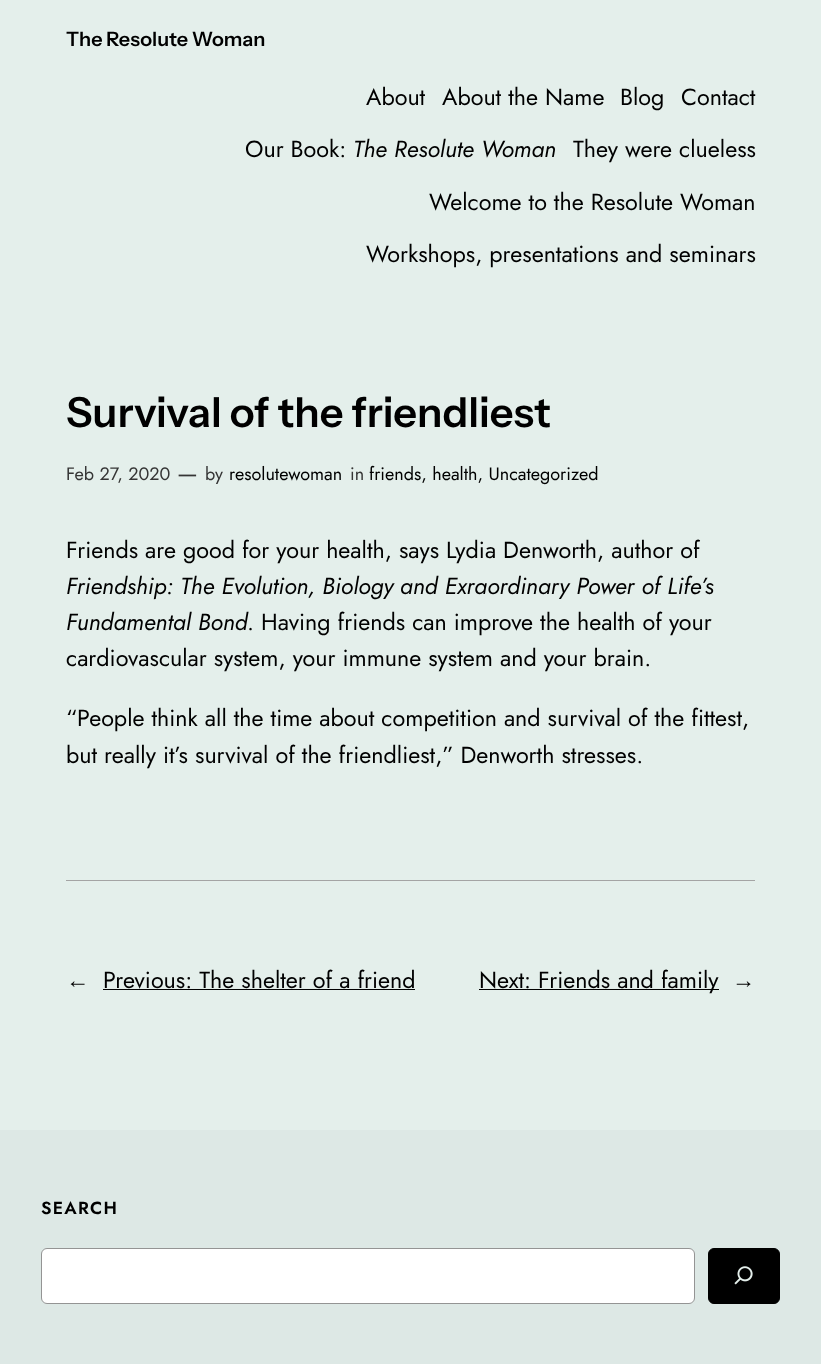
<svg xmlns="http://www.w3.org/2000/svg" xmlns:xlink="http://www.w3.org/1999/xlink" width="821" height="1364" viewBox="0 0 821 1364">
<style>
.cls-1{font:600 19.75px Instrument Sans;fill:#000000}
.cls-2{font:23.3px Jost;fill:#000000}
.cls-3{font:italic 23.3px Jost;fill:#000000}
.cls-4{font:600 41.5px Instrument Sans;fill:#000000}
.cls-5{font:18px Jost;fill:#353535}
.cls-6{font:23.3px Jost;fill:#353535}
.cls-7{font:18px Jost;fill:#000000}
.cls-8{font:23.3px Liberation Sans;fill:#000000}
.cls-9{font:600 17.5px Jost;letter-spacing:1.25px;fill:#000000}
</style>
<rect width="100%" height="100%" fill="#e4efeb"/>
<rect fill="#a4a4a4" x="66" y="880" width="689" height="1"/>
<rect fill="#000000" x="103" y="989" width="312" height="1"/>
<rect fill="#000000" x="479" y="989" width="240" height="1"/>
<rect fill="#dde8e5" x="0" y="1130" width="821" height="234"/>
<rect fill="#ffffff" stroke="#949494" x="41.5" y="1248.5" width="653" height="55" rx="5.5"/>
<rect fill="#000000" stroke="#000000" x="708.5" y="1248.5" width="71" height="55" rx="5.5"/>
<image xlink:href="image0.png" x="734" y="1266" width="19" height="19"/>
<text class="cls-1" x="66" y="46">The Resolute Woman</text>
<text class="cls-2" x="366" y="105">About</text>
<text class="cls-2" x="442" y="105">About the Name</text>
<text class="cls-2" x="620" y="105">Blog</text>
<text class="cls-2" x="681" y="105">Contact</text>
<text class="cls-2" x="245" y="157">Our Book:</text>
<text class="cls-3" x="353" y="157">The Resolute Woman</text>
<text class="cls-2" x="573" y="157">They were clueless</text>
<text class="cls-2" x="429" y="210">Welcome to the Resolute Woman</text>
<text class="cls-2" x="366" y="262">Workshops, presentations and seminars</text>
<text class="cls-4" x="66" y="427">Survival of the friendliest</text>
<text class="cls-5" x="66" y="480">Feb 27, 2020</text>
<text class="cls-6" x="177" y="481">—</text>
<text class="cls-5" x="205" y="480">by</text>
<text class="cls-7" x="229" y="480">resolutewoman</text>
<text class="cls-5" x="350" y="480">in</text>
<text class="cls-7" x="369" y="480">friends, health, Uncategorized</text>
<text class="cls-2" x="66" y="558">Friends are good for your health, says Lydia Denworth, author of</text>
<text class="cls-3" x="66" y="594">Friendship: The Evolution, Biology</text>
<text class="cls-3" x="400" y="594">and Exraordinary Power of Life’s</text>
<text class="cls-3" x="66" y="630">Fundamental Bond</text>
<text class="cls-2" x="247" y="630">. Having friends can improve the health of your</text>
<text class="cls-2" x="66" y="666">cardiovascular system, your immune system and your brain.</text>
<text class="cls-2"><tspan x="66" y="726">“People think all the time about competition and survival of the fittest,</tspan><tspan x="66" y="763">but really it’s survival of the friendliest,” Denworth stresses.</tspan></text>
<text class="cls-8" x="66" y="988">←</text>
<text class="cls-2" x="103" y="988">Previous: The shelter of a friend</text>
<text class="cls-2" x="479" y="988">Next: Friends and family</text>
<text class="cls-8" x="732" y="988">→</text>
<text class="cls-9" x="41" y="1214">SEARCH</text>
</svg>
